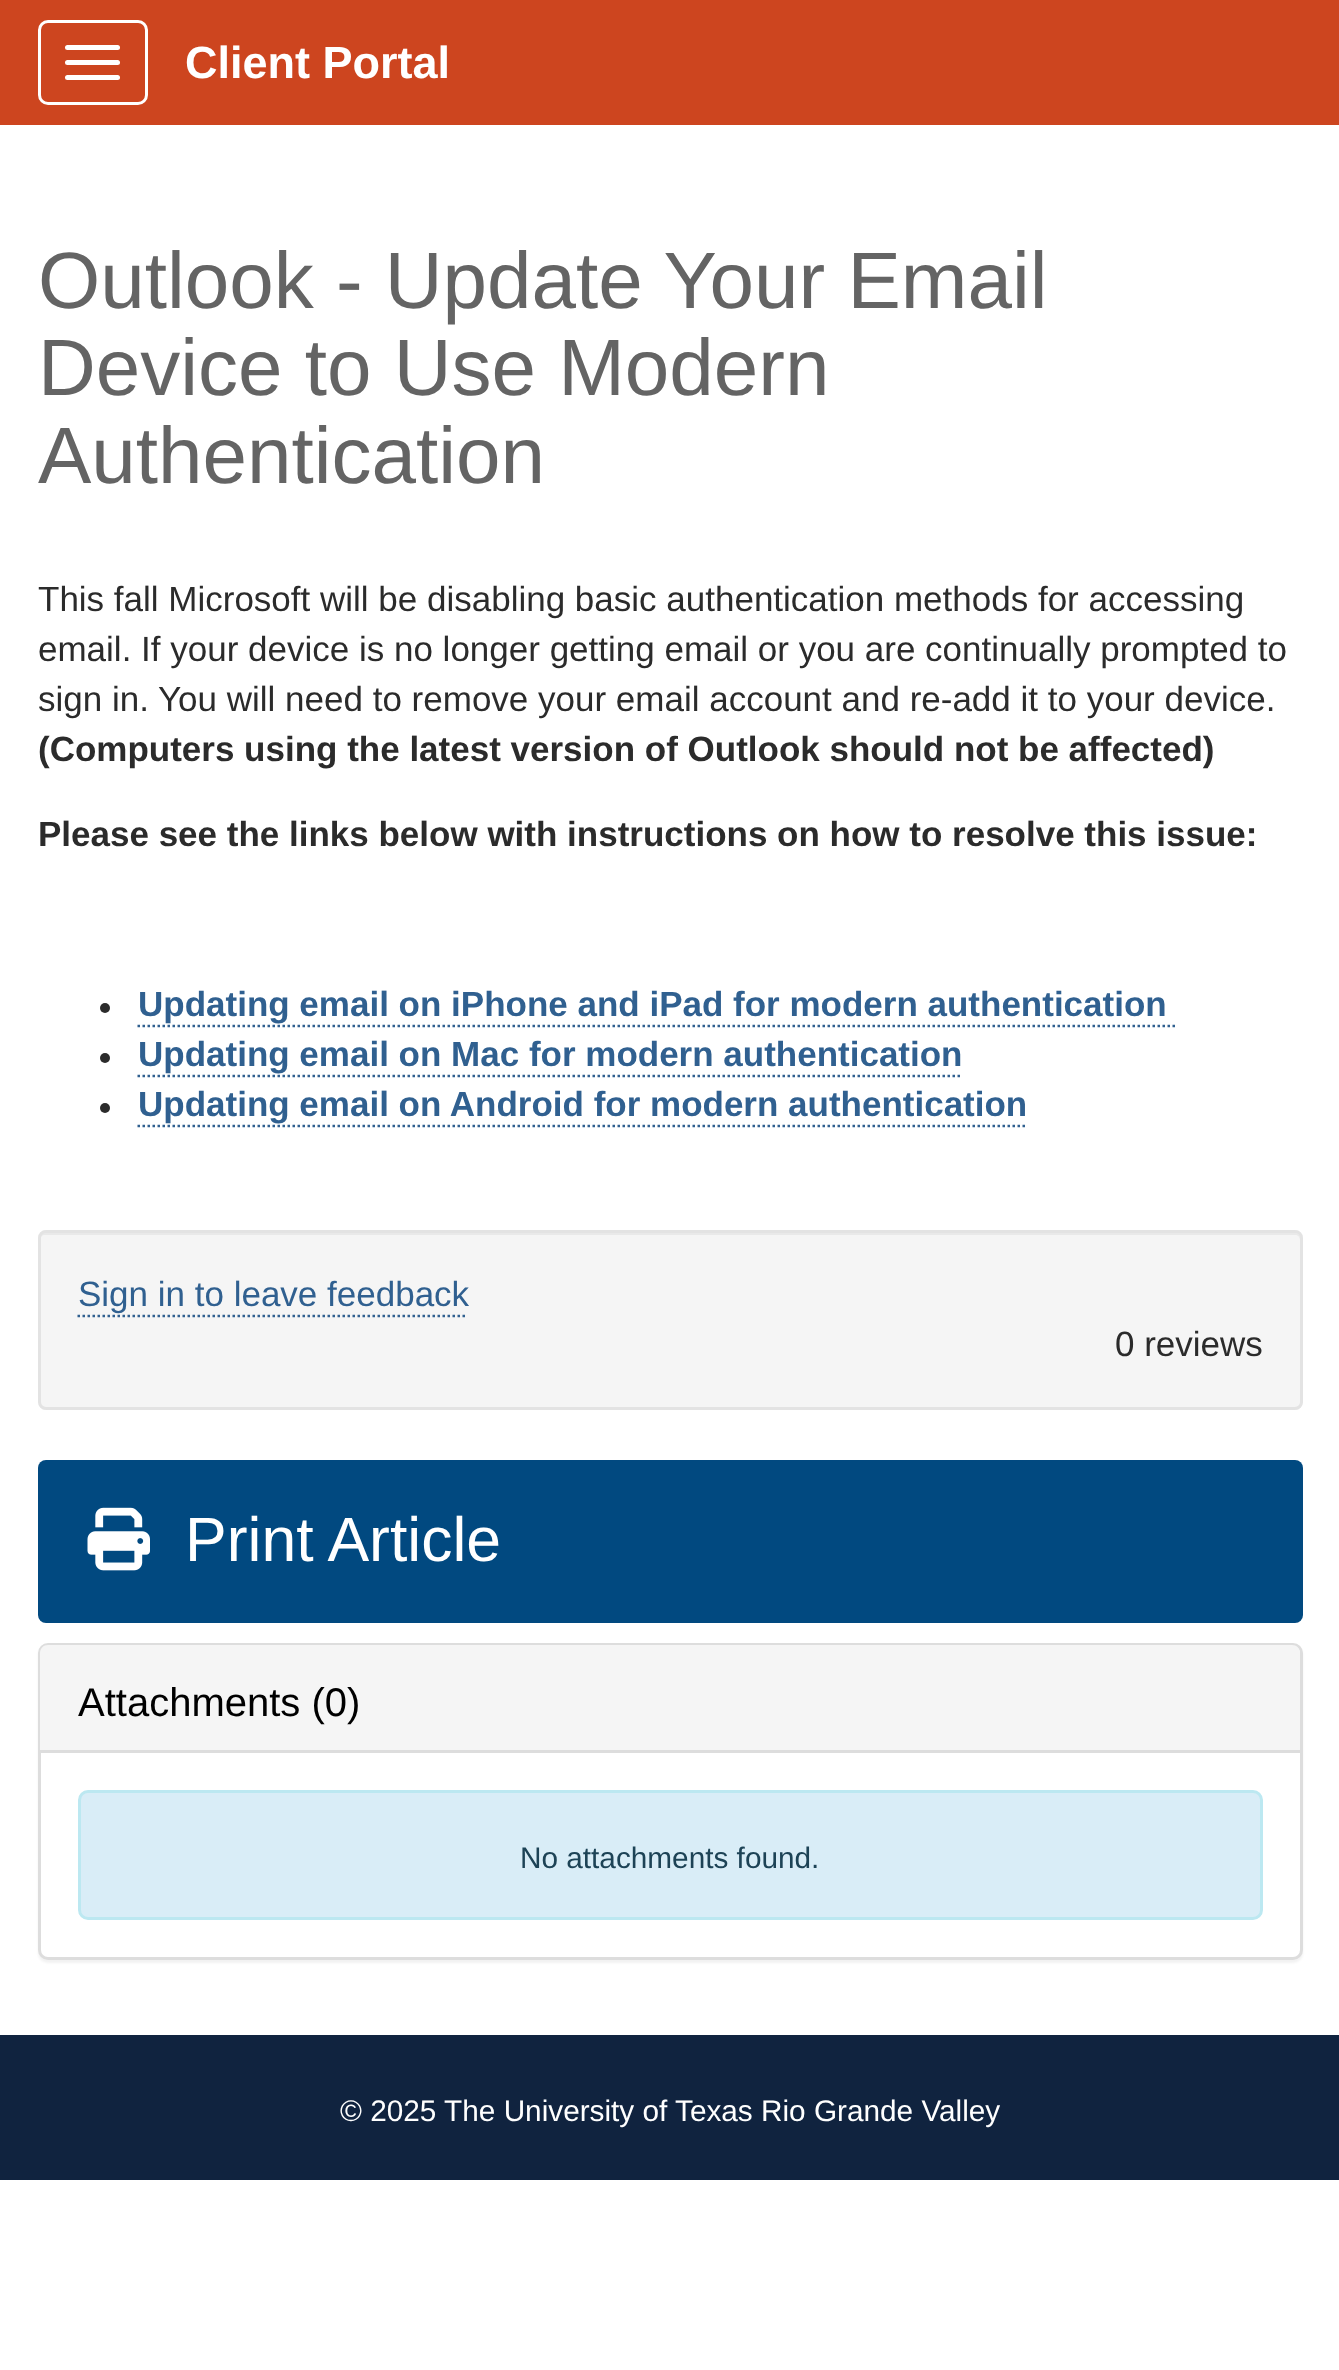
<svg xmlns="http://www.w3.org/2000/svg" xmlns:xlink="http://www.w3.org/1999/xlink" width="1339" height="2370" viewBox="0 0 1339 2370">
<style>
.cls-1{font:bold 45px Liberation Sans;fill:#ffffff}
.cls-2{font:80px Liberation Sans;fill:#646464}
.cls-3{font:35px Liberation Sans;fill:#2b2b2b}
.cls-4{font:bold 35px Liberation Sans;fill:#2b2b2b}
.cls-5{font:bold 35px Liberation Sans;fill:#306090}
.cls-6{font:35px Liberation Sans;fill:#306090}
.cls-7{font:62.5px Liberation Sans;fill:#ffffff}
.cls-8{font:40px Liberation Sans;fill:#000000}
.cls-9{font:29.75px Liberation Sans;fill:#1d4356}
.cls-10{font:29.75px Liberation Sans;fill:#ffffff}
</style>
<rect width="100%" height="100%" fill="#ffffff"/>
<rect fill="#cd451f" x="0" y="0" width="1339" height="125"/>
<rect fill="none" stroke="#ffffff" stroke-width="3" x="39.5" y="21.5" width="107" height="82" rx="8.5"/>
<rect fill="#ffffff" x="65" y="45" width="55" height="5" rx="2.5"/>
<rect fill="#ffffff" x="65" y="60" width="55" height="5" rx="2.5"/>
<rect fill="#ffffff" x="65" y="75" width="55" height="5" rx="2.5"/>
<circle fill="#2b2b2b" cx="105" cy="1008" r="5"/>
<path fill="none" stroke="#306090" stroke-width="2.5" stroke-dasharray="2.5 2.5" d="M137.5 1026H1175"/>
<circle fill="#2b2b2b" cx="105" cy="1058" r="5"/>
<path fill="none" stroke="#306090" stroke-width="2.5" stroke-dasharray="2.5 2.5" d="M137.5 1076H962.5"/>
<circle fill="#2b2b2b" cx="105" cy="1108" r="5"/>
<path fill="none" stroke="#306090" stroke-width="2.5" stroke-dasharray="2.5 2.5" d="M137.5 1126H1027.5"/>
<rect fill="#f5f5f5" x="38" y="1230" width="1265" height="180" rx="8"/>
<path fill="#e9e9e9" d="M45 1235H1295C1298 1235 1300 1237 1300 1240V1238C1300 1235 1298 1233 1295 1233H45C42 1233 40 1235 40 1238V1240C40 1237 42 1235 45 1235Z"/>
<rect fill="none" stroke="#e3e3e3" stroke-width="3" x="39.5" y="1231.5" width="1262" height="177" rx="6.5"/>
<path fill="none" stroke="#306090" stroke-width="2.5" stroke-dasharray="2.5 2.5" d="M77.5 1316H467.5"/>
<rect fill="#014980" x="38" y="1460" width="1265" height="163" rx="8"/>
<image xlink:href="image0.png" x="87" y="1507" width="63" height="64"/>
<rect fill="#000000" fill-opacity="0.05" filter="blur(1px)" x="38" y="1645" width="1265" height="318" rx="10"/>
<rect fill="#ffffff" stroke="#dddddd" stroke-width="3" x="39.5" y="1644.5" width="1262" height="314" rx="8.5"/>
<path fill="#f5f5f5" d="M48 1645H1292C1296.5 1645 1300 1648.5 1300 1653V1753H40V1653C40 1648.5 43.5 1645 48 1645Z"/>
<rect fill="#dddddd" x="40" y="1750" width="1260" height="3"/>
<rect fill="#d9edf7" stroke="#bce8f1" stroke-width="3" x="79.5" y="1791.5" width="1182" height="127" rx="8.5"/>
<rect fill="#10233f" x="0" y="2035" width="1339" height="145"/>
<text class="cls-1" x="185" y="78">Client Portal</text>
<text class="cls-2"><tspan x="38" y="308">Outlook - Update Your Email</tspan><tspan x="38" y="395">Device to Use Modern</tspan><tspan x="38" y="483">Authentication</tspan></text>
<text class="cls-3"><tspan x="38" y="611">This fall Microsoft will be disabling basic authentication methods for accessing</tspan><tspan x="38" y="661">email. If your device is no longer getting email or you are continually prompted to</tspan><tspan x="38" y="711">sign in. You will need to remove your email account and re-add it to your device.</tspan></text>
<text class="cls-4" x="38" y="761">(Computers using the latest version of Outlook should not be affected)</text>
<text class="cls-4" x="38" y="846">Please see the links below with instructions on how to resolve this issue:</text>
<text class="cls-5"><tspan x="138" y="1016">Updating email on iPhone and iPad for modern authentication</tspan><tspan x="138" y="1066">Updating email on Mac for modern authentication</tspan><tspan x="138" y="1116">Updating email on Android for modern authentication</tspan></text>
<text class="cls-6" x="78" y="1306">Sign in to leave feedback</text>
<text class="cls-3" x="1115" y="1356">0 reviews</text>
<text class="cls-7" x="185" y="1561">Print Article</text>
<text class="cls-8" x="78" y="1716">Attachments (0)</text>
<text class="cls-9" x="520" y="1868">No attachments found.</text>
<text class="cls-10" x="340" y="2121">© 2025 The University of Texas Rio Grande Valley</text>
</svg>
